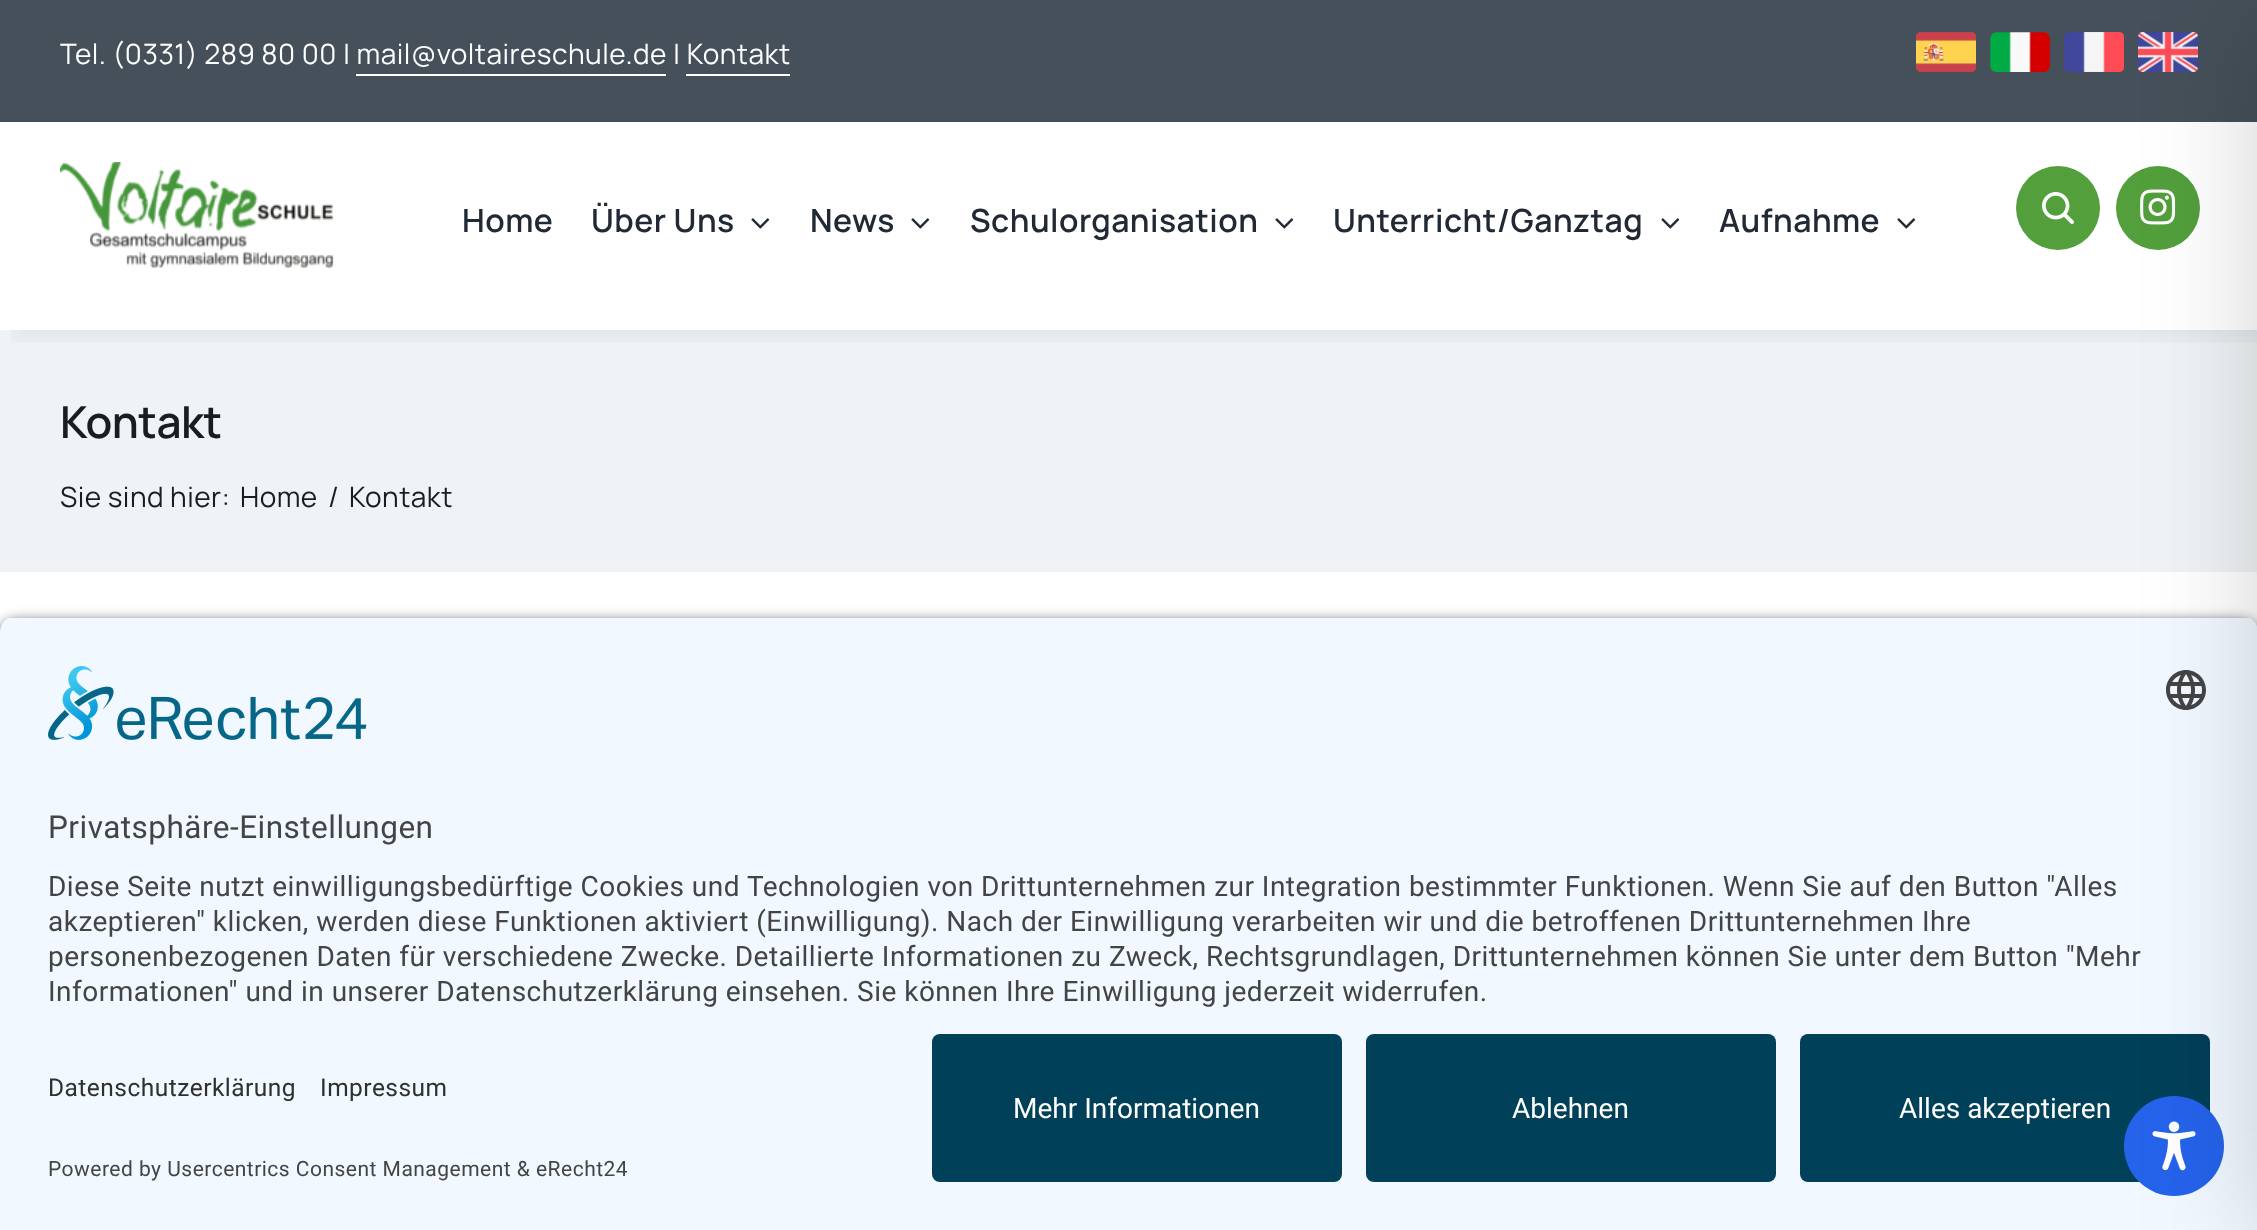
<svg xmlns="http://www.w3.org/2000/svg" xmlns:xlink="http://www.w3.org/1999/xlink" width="2257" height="1230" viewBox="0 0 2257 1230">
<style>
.cls-1{font:28px Manrope;letter-spacing:0.48px;fill:#ffffff}
.cls-2{font:600 32px Manrope;letter-spacing:0.48px;fill:#212934}
.cls-3{font:600 44px Manrope;letter-spacing:-0.5px;fill:#191d21}
.cls-4{font:28px Manrope;letter-spacing:0.48px;fill:#191d21}
.cls-5{font:31.5px Roboto;letter-spacing:0.48px;fill:#444444}
.cls-6{font:28px Roboto;letter-spacing:0.48px;fill:#444444}
.cls-7{font:24.5px Roboto;letter-spacing:0.48px;fill:#303030}
.cls-8{font:21px Roboto;letter-spacing:0.48px;fill:#444444}
.cls-9{font:28px Roboto;fill:#ffffff}
</style>
<defs>
<clipPath id="clip1"><rect x="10" y="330" width="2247" height="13"/></clipPath>
<clipPath id="clip2"><path d="M16 616H2242C2251 616 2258 623 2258 632V1018H0V632C0 623 7 616 16 616Z"/></clipPath>
</defs>
<rect width="100%" height="100%" fill="#ffffff"/>
<rect fill="#45505a" x="0" y="0" width="2257" height="122"/>
<rect fill="#ffffff" x="356" y="74" width="310" height="2"/>
<rect fill="#ffffff" x="686" y="74" width="104" height="2"/>
<image xlink:href="image0.png" x="1916" y="32" width="60" height="40"/>
<image xlink:href="image1.png" x="1990" y="32" width="60" height="40"/>
<image xlink:href="image2.png" x="2064" y="32" width="60" height="40"/>
<image xlink:href="image3.png" x="2138" y="32" width="60" height="40"/>
<rect fill="#eff3f5" x="0" y="330" width="2257" height="242"/>
<g clip-path="url(#clip1)">
<rect fill="#020303" fill-opacity="0.05" filter="blur(10px)" x="10" y="132" width="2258" height="208"/>
</g>
<image xlink:href="image4.png" x="60" y="162" width="274" height="106"/>
<image xlink:href="image5.png" x="751" y="218" width="19" height="11"/>
<image xlink:href="image5.png" x="911" y="218" width="19" height="11"/>
<image xlink:href="image5.png" x="1275" y="218" width="19" height="11"/>
<image xlink:href="image5.png" x="1661" y="218" width="19" height="11"/>
<image xlink:href="image5.png" x="1897" y="218" width="19" height="11"/>
<circle fill="#529f3c" cx="2058" cy="208" r="42"/>
<image xlink:href="image6.png" x="2042" y="192" width="32" height="32"/>
<circle fill="#529f3c" cx="2158" cy="208" r="42"/>
<image xlink:href="image7.png" x="2140" y="189" width="36" height="36"/>
<rect fill="#000000" fill-opacity="0.8" filter="blur(7px)" x="0" y="622" width="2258" height="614" rx="16"/>
<rect fill="#f1f8ff" x="0" y="1018" width="2257" height="212"/>
<rect fill="#004059" x="1800" y="1034" width="410" height="148" rx="8"/>
<circle fill="#2563eb" cx="2174" cy="1146" r="50"/>
<image xlink:href="image8.png" x="2152" y="1121" width="44" height="50"/>
<g clip-path="url(#clip2)">
<rect fill="#f1f8ff" x="0" y="618" width="2257" height="400"/>
</g>
<image xlink:href="image10.png" x="2166" y="670" width="40" height="40"/>
<rect fill="#000000" fill-opacity="0.2" filter="blur(60px)" x="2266" y="20" width="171" height="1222"/>
<image xlink:href="image9.png" x="48" y="666" width="319" height="74"/>
<rect fill="#004059" x="932" y="1034" width="410" height="148" rx="8"/>
<rect fill="#004059" x="1366" y="1034" width="410" height="148" rx="8"/>
<text class="cls-1" x="60" y="64">Tel. (0331) 289 80 00 | mail@voltaireschule.de | Kontakt</text>
<text class="cls-2" x="462" y="232">Home</text>
<text class="cls-2" x="591" y="232">Über Uns</text>
<text class="cls-2" x="810" y="232">News</text>
<text class="cls-2" x="970" y="232">Schulorganisation</text>
<text class="cls-2" x="1333" y="232">Unterricht/Ganztag</text>
<text class="cls-2" x="1719" y="232">Aufnahme</text>
<text class="cls-3" x="60" y="438">Kontakt</text>
<text class="cls-4" x="60" y="507">Sie sind hier:</text>
<text class="cls-4" x="240" y="507">Home</text>
<text class="cls-4" x="328" y="507">/</text>
<text class="cls-4" x="349" y="507">Kontakt</text>
<text class="cls-5" x="48" y="838">Privatsphäre-Einstellungen</text>
<text class="cls-6"><tspan x="48" y="896">Diese Seite nutzt einwilligungsbedürftige Cookies und Technologien von Drittunternehmen zur Integration bestimmter Funktionen. Wenn Sie auf den Button "Alles</tspan><tspan x="48" y="931">akzeptieren" klicken, werden diese Funktionen aktiviert (Einwilligung). Nach der Einwilligung verarbeiten wir und die betroffenen Drittunternehmen Ihre</tspan><tspan x="48" y="966">personenbezogenen Daten für verschiedene Zwecke. Detaillierte Informationen zu Zweck, Rechtsgrundlagen, Drittunternehmen können Sie unter dem Button "Mehr</tspan><tspan x="48" y="1001">Informationen" und in unserer Datenschutzerklärung einsehen. Sie können Ihre Einwilligung jederzeit widerrufen.</tspan></text>
<text class="cls-7" x="48" y="1096">Datenschutzerklärung</text>
<text class="cls-7" x="320" y="1096">Impressum</text>
<text class="cls-8" x="48" y="1176">Powered by Usercentrics Consent Management &amp; eRecht24</text>
<text class="cls-9" x="1013" y="1118">Mehr Informationen</text>
<text class="cls-9" x="1512" y="1118">Ablehnen</text>
<text class="cls-9" x="1899" y="1118">Alles akzeptieren</text>
</svg>
